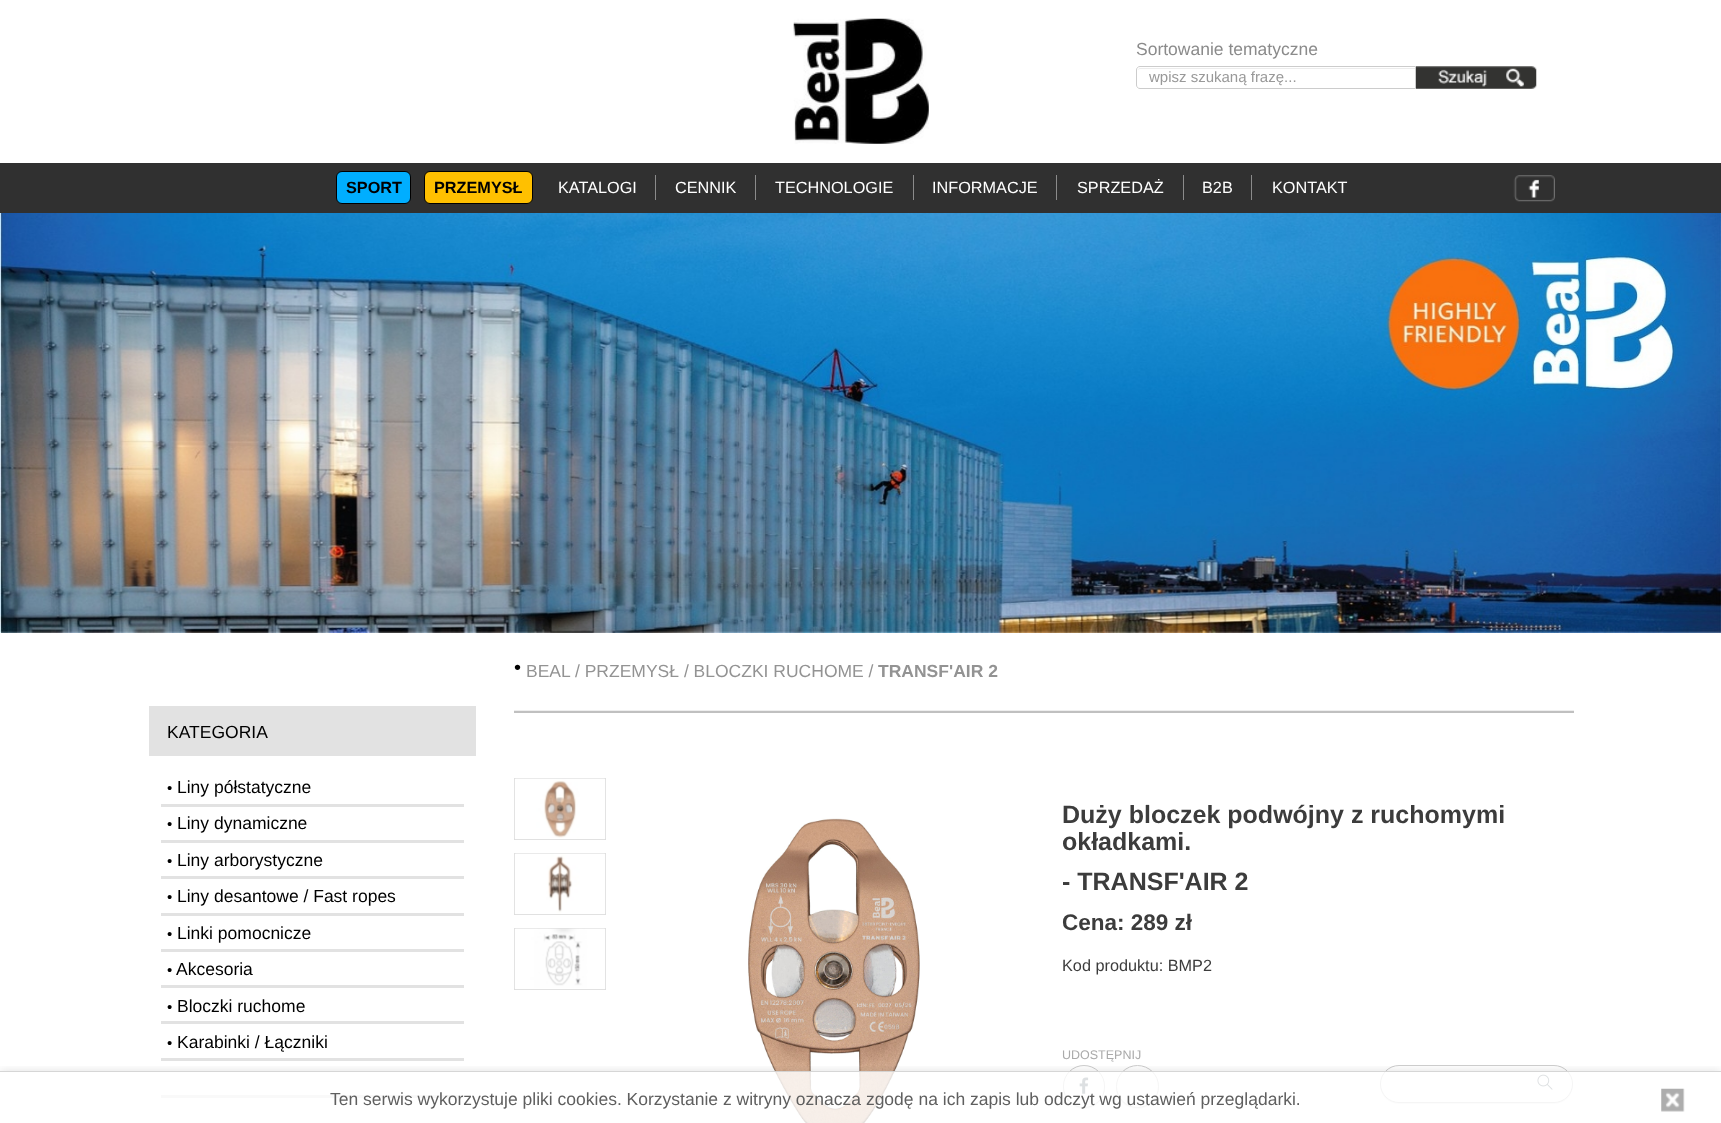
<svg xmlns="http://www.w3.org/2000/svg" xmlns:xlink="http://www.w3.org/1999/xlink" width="1721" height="1123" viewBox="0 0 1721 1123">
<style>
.cls-1{font:17.5px Liberation Sans;fill:#8b8b8b}
.cls-2{font:15px Liberation Sans;fill:#999999}
.cls-3{font:bold 16.25px Liberation Sans;fill:#000000}
.cls-4{font:16.25px Liberation Sans;fill:#ffffff}
.cls-5{font:17.5px Liberation Sans;fill:#000000}
.cls-6{font:15px Liberation Sans;fill:#000000}
.cls-7{font:20px Liberation Sans;fill:#000000}
.cls-8{font:17.5px Liberation Sans;fill:#939393}
.cls-9{font:bold 17.5px Liberation Sans;fill:#939393}
.cls-10{font:bold 25px Liberation Sans;fill:#3c3c3c}
.cls-11{font:bold 22.5px Liberation Sans;fill:#3c3c3c}
.cls-12{font:16.25px Liberation Sans;fill:#3c3c3c}
.cls-13{font:12.5px Liberation Sans;fill:#aaaaaa}
.cls-14{font:17.5px Liberation Sans;fill:#5f5f5f}
</style>
<defs>
<clipPath id="clip1"><rect x="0" y="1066" width="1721" height="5"/></clipPath>
</defs>
<rect width="100%" height="100%" fill="#ffffff"/>
<image xlink:href="image0.png" x="793" y="18" width="136" height="126"/>
<path fill="#ececec" d="M1140 69H1415V68H1140C1139 68 1138 69 1138 71C1138 70 1139 69 1140 69Z"/>
<path fill="none" stroke="#cccccc" d="M1140 66.5H1415.5V88.5H1140C1138 88.5 1136.5 87 1136.5 85V70C1136.5 68 1138 66.5 1140 66.5Z"/>
<image xlink:href="image1.png" x="1416" y="66" width="121" height="23"/>
<rect fill="#303030" x="0" y="163" width="1721" height="50"/>
<rect fill="#00aeff" stroke="#000000" x="336.5" y="171.5" width="74" height="32" rx="5.5"/>
<rect fill="#ffc000" stroke="#000000" x="424.5" y="171.5" width="108" height="32" rx="5.5"/>
<rect fill="#8b8b8b" x="655" y="175" width="1" height="25"/>
<rect fill="#8b8b8b" x="755" y="175" width="1" height="25"/>
<rect fill="#8b8b8b" x="913" y="175" width="1" height="25"/>
<rect fill="#8b8b8b" x="1056" y="175" width="1" height="25"/>
<rect fill="#8b8b8b" x="1183" y="175" width="1" height="25"/>
<rect fill="#8b8b8b" x="1251" y="175" width="1" height="25"/>
<image xlink:href="image2.png" x="1513" y="175" width="42" height="27"/>
<image xlink:href="image3.png" x="0" y="213" width="1721" height="420"/>
<rect fill="#e2e2e2" x="149" y="706" width="327" height="50"/>
<rect fill="#e2e2e2" x="161" y="804" width="303" height="3"/>
<rect fill="#e2e2e2" x="161" y="840" width="303" height="3"/>
<rect fill="#e2e2e2" x="161" y="876" width="303" height="3"/>
<rect fill="#e2e2e2" x="161" y="913" width="303" height="3"/>
<rect fill="#e2e2e2" x="161" y="949" width="303" height="3"/>
<rect fill="#e2e2e2" x="161" y="985" width="303" height="3"/>
<rect fill="#e2e2e2" x="161" y="1021" width="303" height="3"/>
<rect fill="#e2e2e2" x="161" y="1058" width="303" height="3"/>
<rect fill="#e2e2e2" x="161" y="1095" width="303" height="3"/>
<rect fill="#c0c0c0" x="514" y="711" width="1060" height="2"/>
<rect fill="#eeeeee" x="514" y="710" width="1060" height="1"/>
<rect fill="none" stroke="#dddddd" x="514.5" y="778.5" width="91" height="61"/>
<image xlink:href="image4.png" x="514" y="778" width="92" height="62"/>
<rect fill="none" stroke="#dddddd" x="514.5" y="853.5" width="91" height="61"/>
<image xlink:href="image5.png" x="514" y="853" width="92" height="62"/>
<rect fill="none" stroke="#dddddd" x="514.5" y="928.5" width="91" height="61"/>
<image xlink:href="image6.png" x="514" y="928" width="92" height="62"/>
<image xlink:href="image7.png" x="748" y="818" width="172" height="305"/>
<rect fill="#5a5a5a" fill-opacity="0.1" filter="blur(0.5px)" x="1063" y="1066" width="42" height="43" rx="21"/>
<rect fill="#ffffff" stroke="#cccccc" x="1063.5" y="1065.5" width="41" height="42" rx="20.5"/>
<image xlink:href="image8.png" x="1079" y="1077" width="10" height="17"/>
<rect fill="#5a5a5a" fill-opacity="0.1" filter="blur(0.5px)" x="1116" y="1066" width="43" height="43" rx="21.5"/>
<circle fill="#ffffff" stroke="#cccccc" cx="1137.5" cy="1086.5" r="21"/>
<rect fill="#5a5a5a" fill-opacity="0.1" filter="blur(0.5px)" x="1380" y="1066" width="193" height="38" rx="19"/>
<rect fill="#ffffff" stroke="#cccccc" x="1380.5" y="1065.5" width="192" height="37" rx="18.5"/>
<image xlink:href="image9.png" x="1537" y="1074" width="16" height="16"/>
<g clip-path="url(#clip1)">
<rect fill="#000000" fill-opacity="0.12" filter="blur(5px)" x="0" y="1071" width="1721" height="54"/>
</g>
<rect fill="#ffffff" fill-opacity="0.8" x="4" y="1071" width="1713" height="52"/>
<rect fill="#cccccc" fill-opacity="0.8" x="0" y="1071" width="1721" height="1"/>
<image xlink:href="image10.png" x="1661" y="1088" width="24" height="24"/>
<text class="cls-1" x="1136" y="55">Sortowanie tematyczne</text>
<text class="cls-2" x="1149" y="82">wpisz szukaną frazę...</text>
<text class="cls-3" x="346" y="193">SPORT</text>
<text class="cls-3" x="434" y="193">PRZEMYSŁ</text>
<text class="cls-4" x="558" y="193">KATALOGI</text>
<text class="cls-4" x="675" y="193">CENNIK</text>
<text class="cls-4" x="775" y="193">TECHNOLOGIE</text>
<text class="cls-4" x="932" y="193">INFORMACJE</text>
<text class="cls-4" x="1077" y="193">SPRZEDAŻ</text>
<text class="cls-4" x="1202" y="193">B2B</text>
<text class="cls-4" x="1272" y="193">KONTAKT</text>
<text class="cls-5" x="167" y="738">KATEGORIA</text>
<text class="cls-6" x="167" y="793">•</text>
<text class="cls-5" x="177" y="793">Liny półstatyczne</text>
<text class="cls-6" x="167" y="829">•</text>
<text class="cls-5" x="177" y="829">Liny dynamiczne</text>
<text class="cls-6" x="167" y="866">•</text>
<text class="cls-5" x="177" y="866">Liny arborystyczne</text>
<text class="cls-6" x="167" y="902">•</text>
<text class="cls-5" x="177" y="902">Liny desantowe / Fast ropes</text>
<text class="cls-6" x="167" y="939">•</text>
<text class="cls-5" x="177" y="939">Linki pomocnicze</text>
<text class="cls-6" x="167" y="975">•</text>
<text class="cls-5" x="176" y="975">Akcesoria</text>
<text class="cls-6" x="167" y="1012">•</text>
<text class="cls-5" x="177" y="1012">Bloczki ruchome</text>
<text class="cls-6" x="167" y="1048">•</text>
<text class="cls-5" x="177" y="1048">Karabinki / Łączniki</text>
<text class="cls-7" x="514" y="674">•</text>
<text class="cls-8" x="526" y="677">BEAL / PRZEMYSŁ / BLOCZKI RUCHOME /</text>
<text class="cls-9" x="878" y="677">TRANSF'AIR 2</text>
<text class="cls-10"><tspan x="1062" y="823">Duży bloczek podwójny z ruchomymi</tspan><tspan x="1062" y="850">okładkami.</tspan><tspan x="1062" y="890">- TRANSF'AIR 2</tspan></text>
<text class="cls-11" x="1062" y="930">Cena: 289 zł</text>
<text class="cls-12" x="1062" y="971">Kod produktu: BMP2</text>
<text class="cls-13" x="1062" y="1059">UDOSTĘPNIJ</text>
<text class="cls-14" x="330" y="1105">Ten serwis wykorzystuje pliki cookies. Korzystanie z witryny oznacza zgodę na ich zapis lub odczyt wg ustawień przeglądarki.</text>
</svg>
